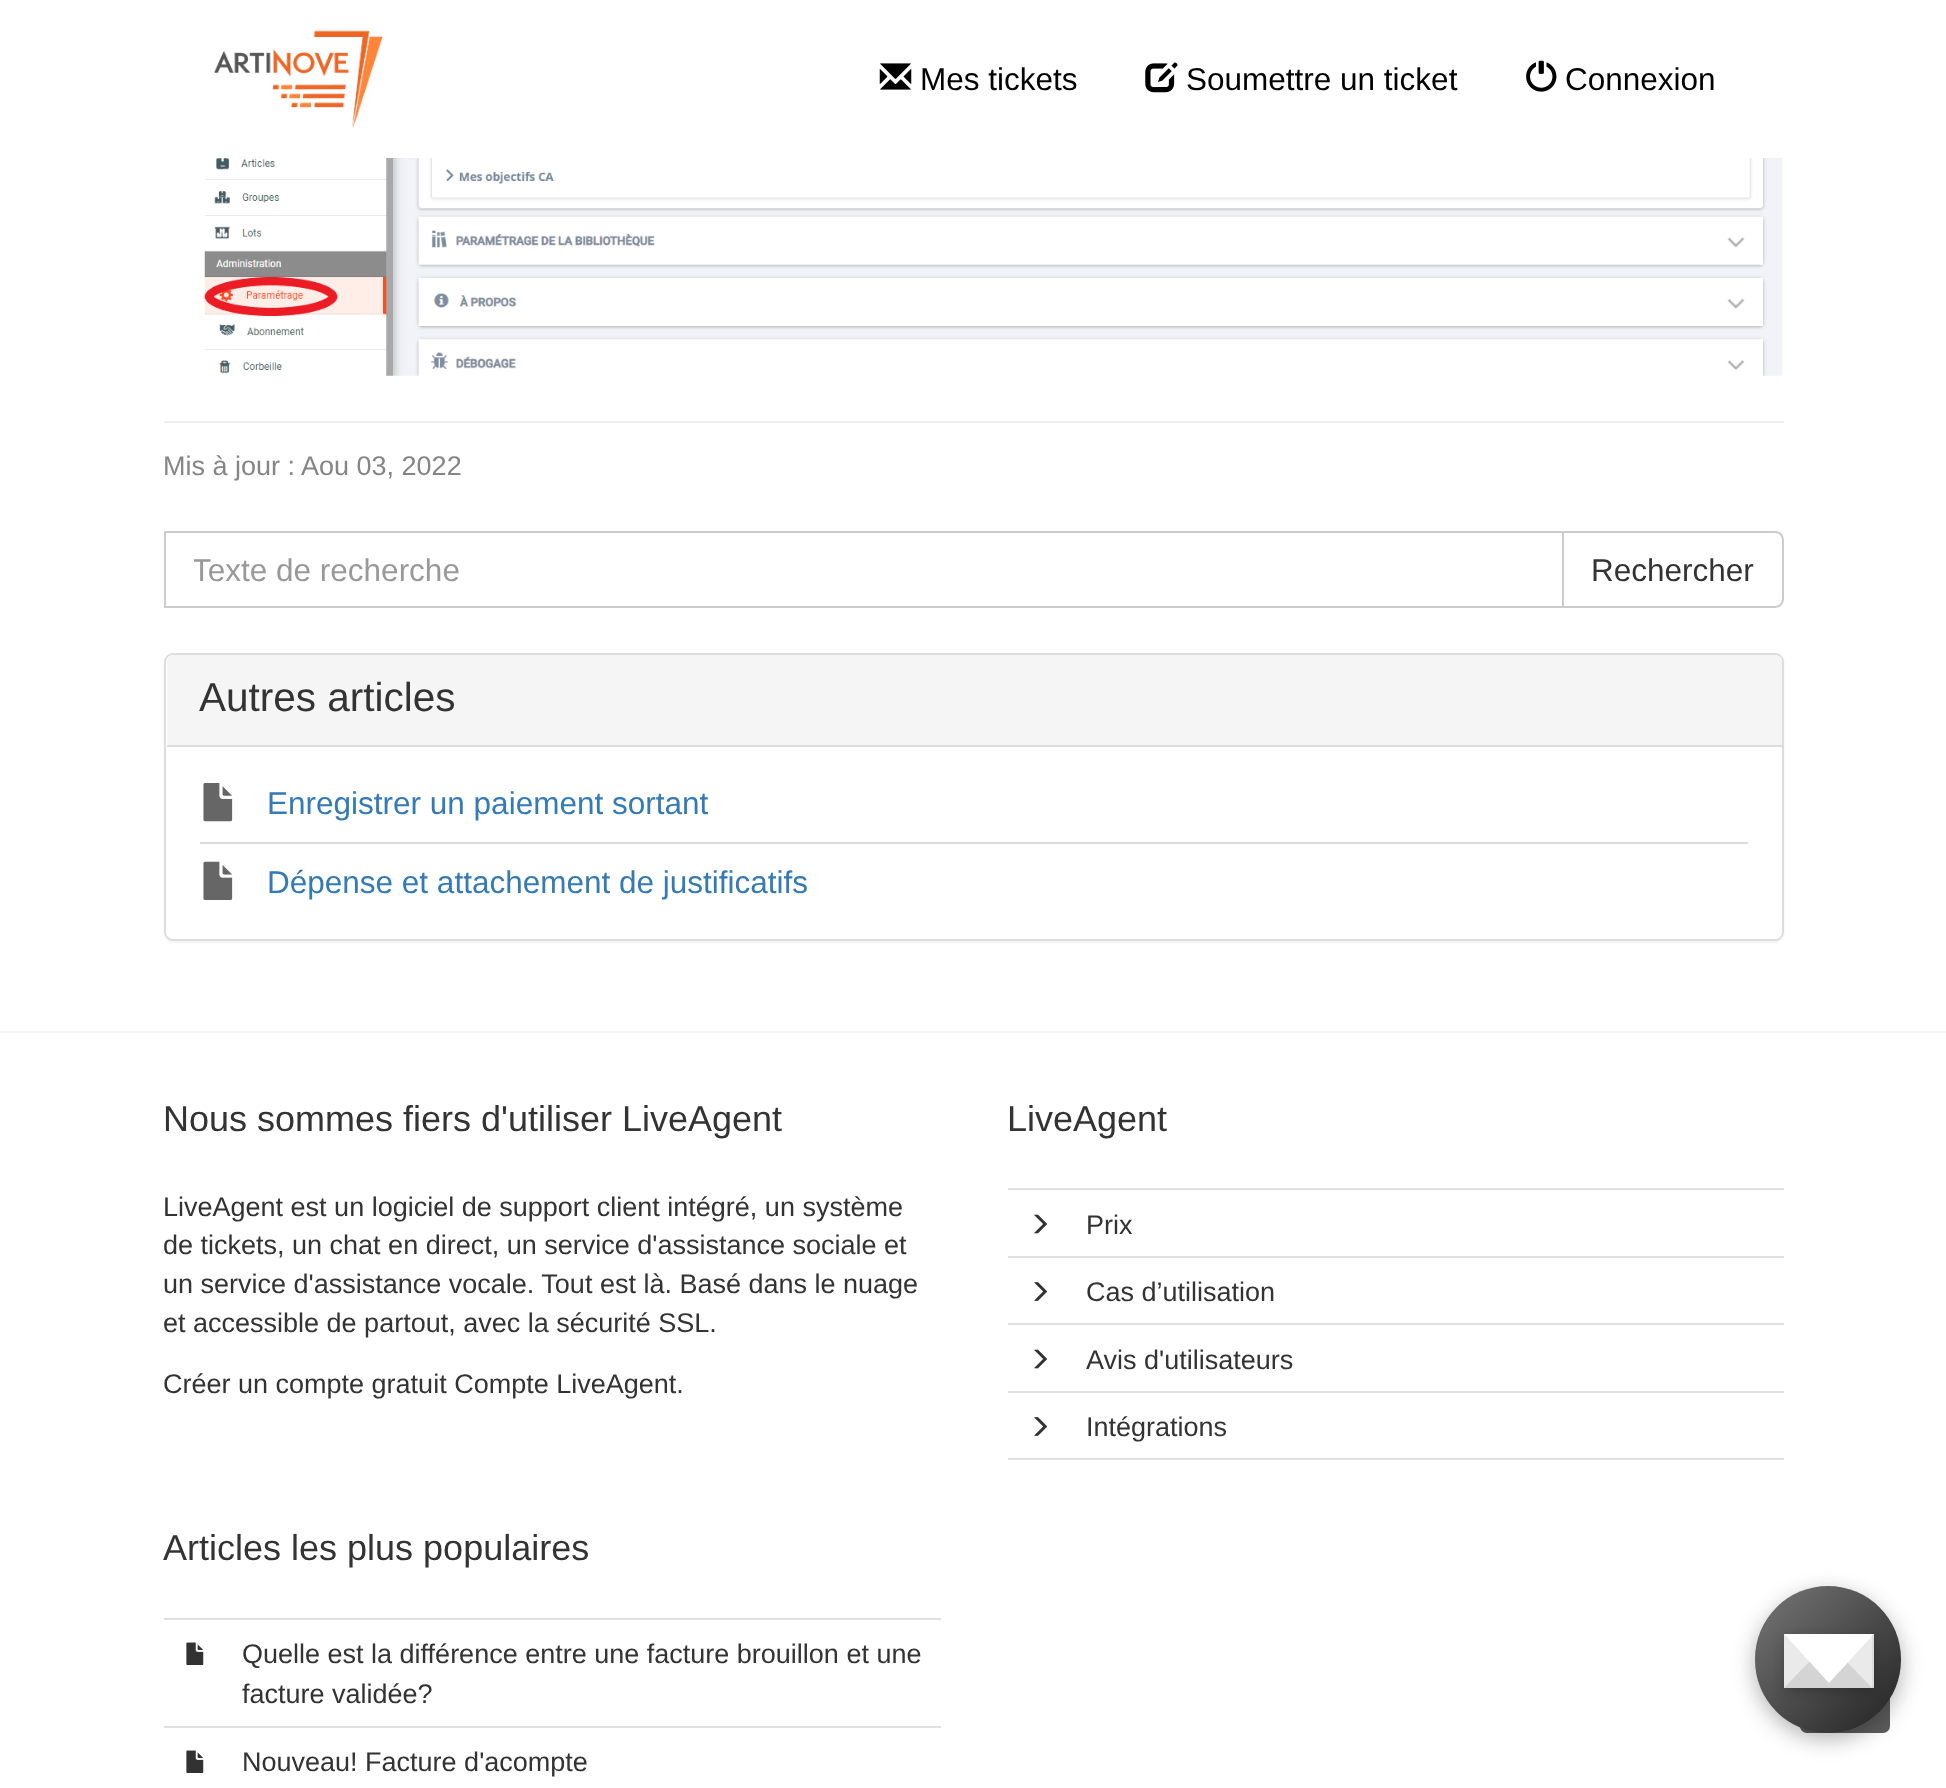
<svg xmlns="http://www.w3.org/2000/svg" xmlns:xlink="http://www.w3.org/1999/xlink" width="1946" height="1788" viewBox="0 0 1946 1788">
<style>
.cls-1{font:31.5px Liberation Sans;fill:#000000}
.cls-2{font:27px Liberation Sans;fill:#858585}
.cls-3{font:31.5px Liberation Sans;fill:#999999}
.cls-4{font:31.5px Liberation Sans;fill:#333333}
.cls-5{font:40.5px Liberation Sans;fill:#333333}
.cls-6{font:31.5px Liberation Sans;fill:#337ab7}
.cls-7{font:36px Liberation Sans;fill:#333333}
.cls-8{font:27px Liberation Sans;fill:#333333}
</style>
<defs>
<linearGradient id="g1" gradientUnits="userSpaceOnUse" x1="1755" y1="1586" x2="1901" y2="1733"><stop offset="0" stop-color="#777777"/><stop offset="1" stop-color="#222222"/></linearGradient>
<clipPath id="clip1"><rect x="194" y="551" width="1341" height="36"/></clipPath>
</defs>
<rect width="100%" height="100%" fill="#ffffff"/>
<rect fill="#e0e0e0" x="164" y="1726" width="777" height="2"/>
<rect fill="#e0e0e0" x="164" y="1618" width="777" height="2"/>
<rect fill="#e0e0e0" x="1008" y="1458" width="776" height="2"/>
<rect fill="#e0e0e0" x="1008" y="1391" width="776" height="2"/>
<rect fill="#e0e0e0" x="1008" y="1323" width="776" height="2"/>
<rect fill="#e0e0e0" x="1008" y="1256" width="776" height="2"/>
<rect fill="#e0e0e0" x="1008" y="1188" width="776" height="2"/>
<rect fill="#f5f5f5" x="0" y="1031" width="1946" height="2"/>
<image xlink:href="image0.png" x="214" y="30" width="169" height="98"/>
<image xlink:href="image1.png" x="879" y="63" width="33" height="27"/>
<image xlink:href="image2.png" x="1145" y="62" width="33" height="31"/>
<image xlink:href="image3.png" x="1526" y="60" width="31" height="32"/>
<image xlink:href="image4.png" x="204" y="158" width="1578" height="218"/>
<rect fill="#f0f0f0" x="164" y="421" width="1620" height="2"/>
<rect fill="none" stroke="#cccccc" stroke-width="2" x="165" y="532" width="1398" height="75"/>
<path fill="#ffffff" stroke="#cccccc" stroke-width="2" d="M1563 532H1775C1779.5 532 1783 535.5 1783 540V599C1783 603.5 1779.5 607 1775 607H1563Z"/>
<rect fill="#000000" fill-opacity="0.05" filter="blur(1px)" x="164" y="655" width="1620" height="288" rx="9"/>
<rect fill="#ffffff" stroke="#dddddd" stroke-width="2" x="165" y="654" width="1618" height="286" rx="8"/>
<path fill="#f5f5f5" d="M174 655H1775C1779 655 1782 658 1782 662V747H167V662C167 658 170 655 174 655Z"/>
<rect fill="#dddddd" x="167" y="745" width="1615" height="2"/>
<image xlink:href="image5.png" x="203" y="783" width="30" height="39"/>
<rect fill="#dddddd" x="200" y="842" width="1548" height="2"/>
<image xlink:href="image6.png" x="203" y="861" width="30" height="39"/>
<image xlink:href="image7.png" x="1034" y="1214" width="13" height="20"/>
<image xlink:href="image8.png" x="1034" y="1282" width="14" height="19"/>
<image xlink:href="image9.png" x="1034" y="1349" width="13" height="20"/>
<image xlink:href="image10.png" x="1034" y="1417" width="14" height="19"/>
<image xlink:href="image11.png" x="186" y="1642" width="18" height="23"/>
<image xlink:href="image12.png" x="186" y="1750" width="18" height="23"/>
<rect fill="#333333" fill-opacity="0.8" x="1800" y="1643" width="90" height="90" rx="7"/>
<rect fill="#000000" fill-opacity="0.3" filter="blur(11px)" x="1755" y="1593" width="146" height="146" rx="73"/>
<rect fill="url(#g1)" x="1755" y="1586" width="146" height="147" rx="73"/>
<rect fill="#000000" fill-opacity="0.2" filter="blur(5.5px)" x="1784" y="1638" width="90" height="54"/>
<rect fill="#dddddd" x="1784" y="1634" width="90" height="54"/>
<path fill="#d4d4d4" d="M1874 1688H1784L1829 1638Z"/>
<path fill="#eaeaea" d="M1784 1688V1634L1811 1660Z"/>
<path fill="#eaeaea" d="M1872 1634V1688L1845 1660Z"/>
<path fill="#ffffff" d="M1784 1634H1874L1829 1683Z"/>
<text class="cls-1" x="920" y="90">Mes tickets</text>
<text class="cls-1" x="1186" y="90">Soumettre un ticket</text>
<text class="cls-1" x="1565" y="90">Connexion</text>
<text class="cls-2" x="163" y="475">Mis à jour :</text>
<text class="cls-2" x="301" y="475">Aou 03, 2022</text>
<g clip-path="url(#clip1)">
<text class="cls-3" x="192" y="581">Texte de recherche</text>
</g>
<text class="cls-4" x="1591" y="581">Rechercher</text>
<text class="cls-5" x="199" y="711">Autres articles</text>
<text class="cls-6" x="267" y="814">Enregistrer un paiement sortant</text>
<text class="cls-6" x="267" y="893">Dépense et attachement de justificatifs</text>
<text class="cls-7" x="163" y="1131">Nous sommes fiers d'utiliser LiveAgent</text>
<text class="cls-8"><tspan x="163" y="1216">LiveAgent est un logiciel de support client intégré, un système</tspan><tspan x="163" y="1254">de tickets, un chat en direct, un service d'assistance sociale et</tspan><tspan x="163" y="1293">un service d'assistance vocale. Tout est là. Basé dans le nuage</tspan><tspan x="163" y="1332">et accessible de partout, avec la sécurité SSL.</tspan></text>
<text class="cls-8" x="163" y="1393">Créer un compte gratuit Compte LiveAgent.</text>
<text class="cls-7" x="1007" y="1131">LiveAgent</text>
<text class="cls-8" x="1086" y="1234">Prix</text>
<text class="cls-8" x="1086" y="1301">Cas d’utilisation</text>
<text class="cls-8" x="1086" y="1369">Avis d'utilisateurs</text>
<text class="cls-8" x="1086" y="1436">Intégrations</text>
<text class="cls-7" x="163" y="1560">Articles les plus populaires</text>
<text class="cls-8"><tspan x="242" y="1663">Quelle est la différence entre une facture brouillon et une</tspan><tspan x="242" y="1703">facture validée?</tspan></text>
<text class="cls-8" x="242" y="1771">Nouveau! Facture d'acompte</text>
</svg>
